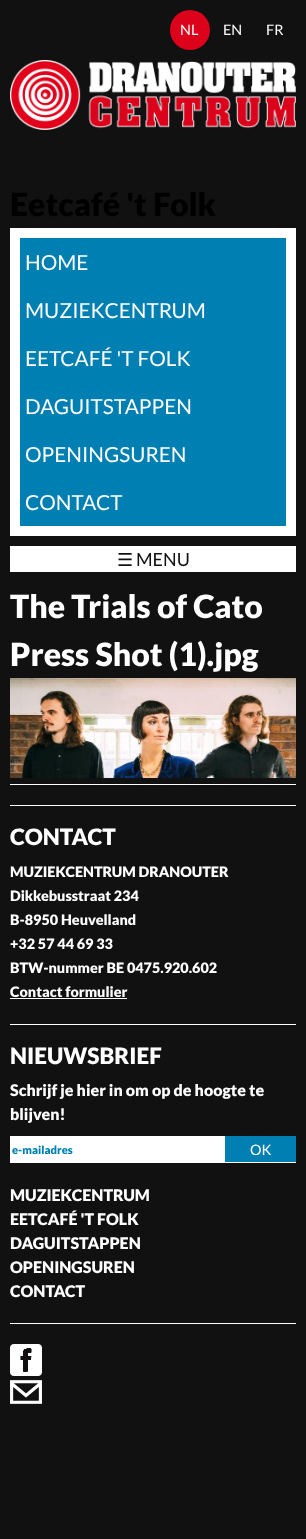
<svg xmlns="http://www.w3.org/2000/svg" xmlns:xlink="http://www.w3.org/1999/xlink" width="306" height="1539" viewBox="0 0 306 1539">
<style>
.cls-1{font:14.4px Lato;fill:#ffffff}
.cls-2{font:900 32px Lato;fill:#000000}
.cls-3{font:20.75px Lato;fill:#ffffff}
.cls-4{font:18px DejaVu Sans;fill:#111111}
.cls-5{font:18px Lato;fill:#111111}
.cls-6{font:900 32px Lato;fill:#ffffff}
.cls-7{font:900 22.5px Lato;fill:#ffffff}
.cls-8{font:900 14.4px Lato;fill:#ffffff}
.cls-9{font:900 16px Lato;fill:#ffffff}
.cls-10{font:900 11.25px Lato;fill:#007fb3}
</style>
<rect width="100%" height="100%" fill="#111111"/>
<circle fill="#dc021b" cx="190" cy="30" r="20"/>
<image xlink:href="image0.png" x="10" y="60" width="286" height="70"/>
<rect fill="#007fb3" stroke="#ffffff" stroke-width="10" x="15" y="233" width="276" height="298"/>
<rect fill="#ffffff" x="10" y="546" width="286" height="26"/>
<image xlink:href="image1.png" x="10" y="678" width="286" height="100"/>
<rect fill="#ffffff" x="10" y="784" width="286" height="1"/>
<rect fill="#ffffff" x="10" y="805" width="286" height="1"/>
<rect fill="#ffffff" x="10" y="998" width="117" height="1"/>
<rect fill="#ffffff" x="10" y="1024" width="286" height="1"/>
<rect fill="#ffffff" x="10" y="1136" width="215" height="26"/>
<rect fill="#007fb3" x="225" y="1136" width="71" height="26"/>
<rect fill="#ffffff" x="10" y="1162" width="286" height="1"/>
<rect fill="#ffffff" x="10" y="1323" width="286" height="1"/>
<image xlink:href="image2.png" x="10" y="1344" width="32" height="32"/>
<image xlink:href="image3.png" x="10" y="1380" width="32" height="24"/>
<text class="cls-1" x="180" y="35">NL</text>
<text class="cls-1" x="223" y="35">EN</text>
<text class="cls-1" x="266" y="35">FR</text>
<text class="cls-2" x="10" y="216">Eetcafé 't Folk</text>
<text class="cls-3" x="25" y="270">HOME</text>
<text class="cls-3" x="25" y="318">MUZIEKCENTRUM</text>
<text class="cls-3" x="25" y="366">EETCAFÉ 'T FOLK</text>
<text class="cls-3" x="25" y="414">DAGUITSTAPPEN</text>
<text class="cls-3" x="25" y="462">OPENINGSUREN</text>
<text class="cls-3" x="25" y="510">CONTACT</text>
<text class="cls-4" x="117" y="566">☰</text>
<text class="cls-5" x="136" y="566">MENU</text>
<text class="cls-6"><tspan x="10" y="618">The Trials of Cato</tspan><tspan x="10" y="666">Press Shot (1).jpg</tspan></text>
<text class="cls-7" x="10" y="845">CONTACT</text>
<text class="cls-8"><tspan x="10" y="877">MUZIEKCENTRUM DRANOUTER</tspan><tspan x="10" y="901">Dikkebusstraat 234</tspan><tspan x="10" y="925">B-8950 Heuvelland</tspan><tspan x="10" y="949">+32 57 44 69 33</tspan><tspan x="10" y="973">BTW-nummer BE 0475.920.602</tspan><tspan x="10" y="997">Contact formulier</tspan></text>
<text class="cls-7" x="10" y="1064">NIEUWSBRIEF</text>
<text class="cls-9"><tspan x="10" y="1096">Schrijf je hier in om op de hoogte te</tspan><tspan x="10" y="1120">blijven!</tspan></text>
<text class="cls-10" x="12" y="1154">e-mailadres</text>
<text class="cls-1" x="250" y="1155">OK</text>
<text class="cls-9"><tspan x="10" y="1201">MUZIEKCENTRUM</tspan><tspan x="10" y="1225">EETCAFÉ 'T FOLK</tspan><tspan x="10" y="1249">DAGUITSTAPPEN</tspan><tspan x="10" y="1273">OPENINGSUREN</tspan><tspan x="10" y="1297">CONTACT</tspan></text>
</svg>
